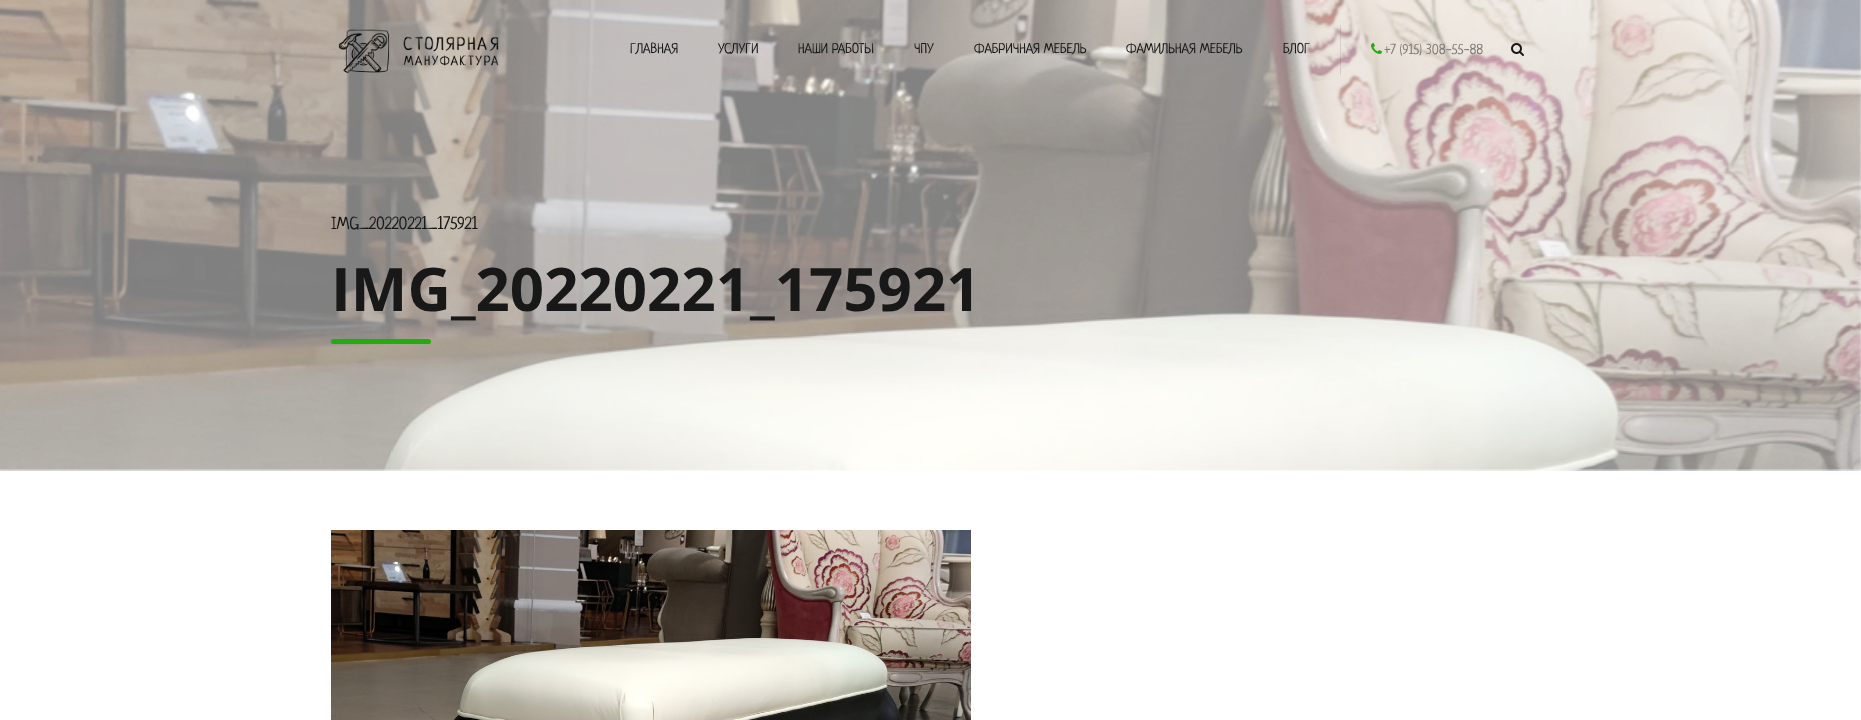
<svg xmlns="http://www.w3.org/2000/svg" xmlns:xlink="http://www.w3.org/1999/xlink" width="1861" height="720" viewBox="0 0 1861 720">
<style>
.cls-1{font:14px Neucha;fill:#181818}
.cls-2{font:14px Neucha;fill:#7f7b77}
.cls-3{font:17.5px Neucha;fill:#181818}
.cls-4{font:bold 60px Open Sans;fill:#181818}
</style>
<rect width="100%" height="100%" fill="#ffffff"/>
<rect fill="#f8f8f8" x="0" y="0" width="1861" height="470"/>
<image xlink:href="image3.png" x="0" y="0" width="1861" height="471"/>
<image xlink:href="image0.png" x="338" y="29" width="161" height="45"/>
<rect fill="#181818" fill-opacity="0.1" x="1340" y="25" width="1" height="50"/>
<image xlink:href="image1.png" x="1371" y="43" width="11" height="11"/>
<image xlink:href="image2.png" x="1511" y="43" width="13" height="13"/>
<rect fill="#22ad0f" x="331" y="339" width="100" height="5" rx="2.5"/>
<image xlink:href="image4.png" x="331" y="530" width="640" height="190"/>
<text class="cls-1" x="630" y="53">ГЛАВНАЯ</text>
<text class="cls-1" x="718" y="53">УСЛУГИ</text>
<text class="cls-1" x="798" y="53">НАШИ РАБОТЫ</text>
<text class="cls-1" x="914" y="53">ЧПУ</text>
<text class="cls-1" x="974" y="53">ФАБРИЧНАЯ МЕБЕЛЬ</text>
<text class="cls-1" x="1126" y="53">ФАМИЛЬНАЯ МЕБЕЛЬ</text>
<text class="cls-1" x="1283" y="53">БЛОГ</text>
<text class="cls-2" x="1384" y="54">+7 (915) 308-55-88</text>
<text class="cls-3" x="331" y="229">IMG_20220221_175921</text>
<text class="cls-4" x="331" y="311">IMG_20220221_175921</text>
</svg>
